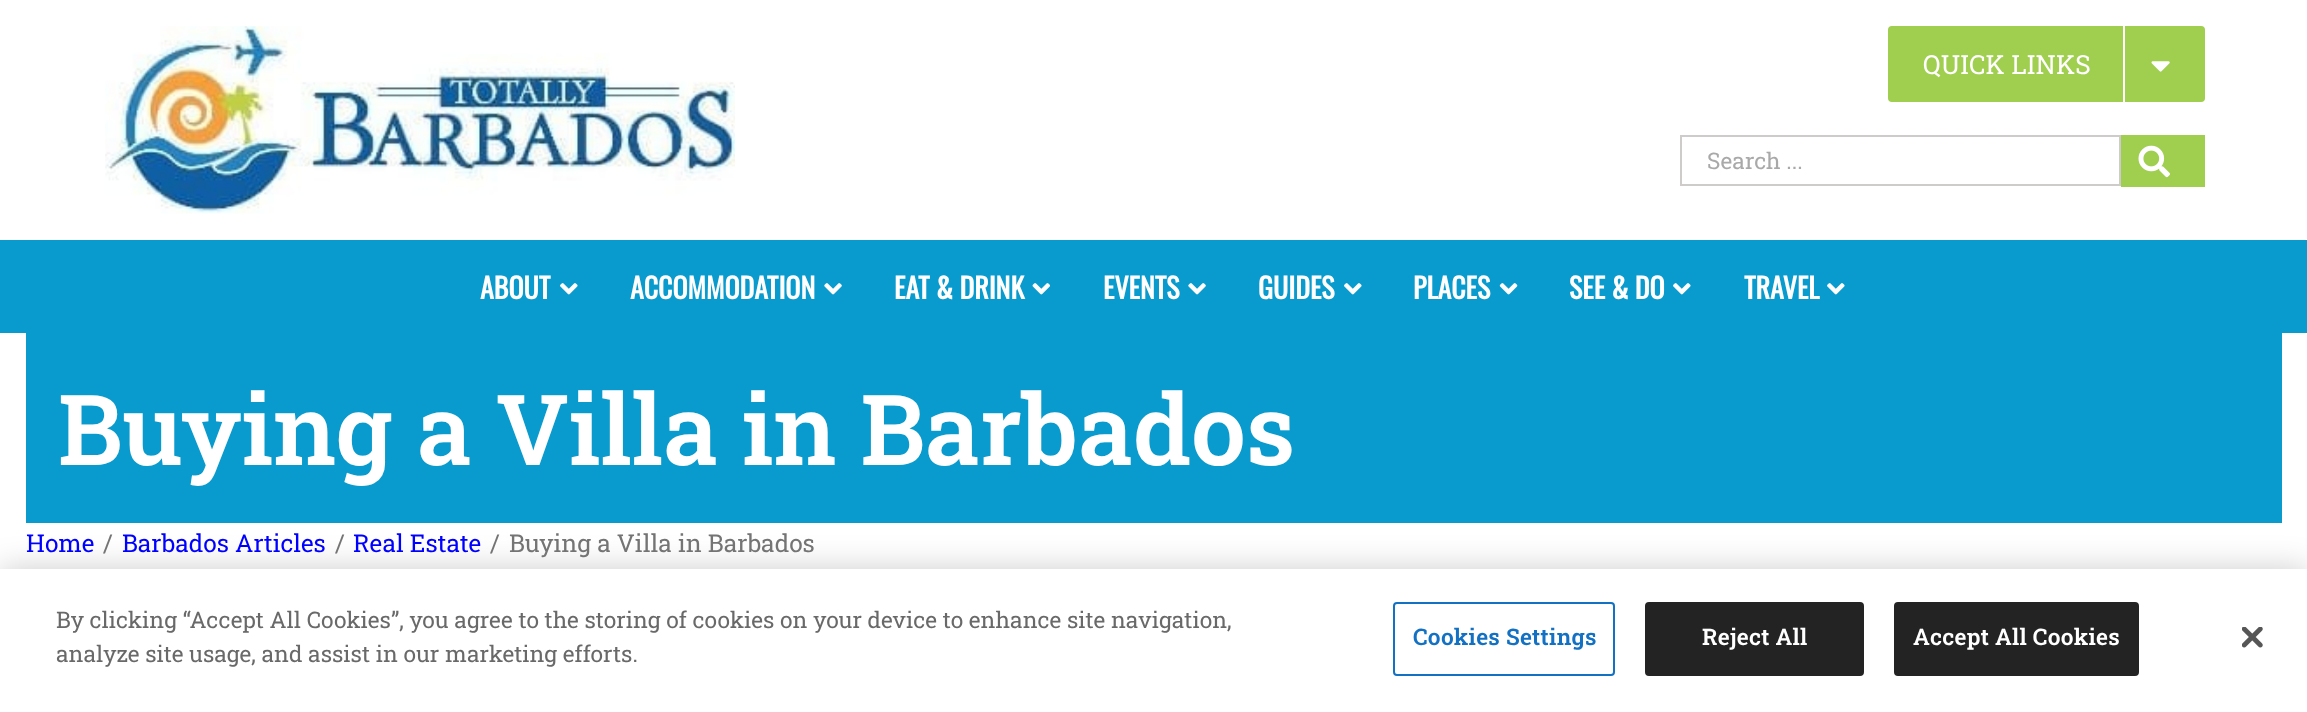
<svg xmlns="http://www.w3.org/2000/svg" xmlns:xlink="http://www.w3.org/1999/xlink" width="2307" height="712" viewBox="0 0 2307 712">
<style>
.cls-1{font:26.25px Roboto Slab;fill:#ffffff}
.cls-2{font:22.75px Roboto Slab;fill:#aaa9a9}
.cls-3{font:bold 28px Oswald;fill:#ffffff}
.cls-4{font:600 98px Roboto Slab;fill:#ffffff}
.cls-5{font:24.5px Roboto Slab;fill:#0000ff}
.cls-6{font:24.5px Roboto Slab;fill:#747474}
.cls-7{font:22.75px Roboto Slab;fill:#696969}
.cls-8{font:600 22.75px Roboto Slab;letter-spacing:0.25px;fill:#1371c3}
.cls-9{font:600 22.75px Roboto Slab;letter-spacing:0.25px;fill:#ffffff}
</style>
<rect width="100%" height="100%" fill="#ffffff"/>
<image xlink:href="image0.png" x="105" y="26" width="630" height="188"/>
<rect fill="#a0ce4e" x="1888" y="26" width="317" height="76" rx="4"/>
<rect fill="#ffffff" x="2123" y="26" width="2" height="76"/>
<image xlink:href="image1.png" x="2151" y="61" width="19" height="11"/>
<rect fill="none" stroke="#cecbcb" stroke-width="2" x="1681" y="136" width="439" height="49"/>
<rect fill="#a0ce4e" x="2121" y="135" width="84" height="52"/>
<image xlink:href="image2.png" x="2138" y="145" width="32" height="33"/>
<rect fill="#099bce" x="0" y="240" width="2307" height="93"/>
<image xlink:href="image3.png" x="560" y="283" width="18" height="12"/>
<image xlink:href="image4.png" x="824" y="283" width="18" height="12"/>
<image xlink:href="image5.png" x="1032" y="283" width="18" height="12"/>
<image xlink:href="image4.png" x="1188" y="283" width="18" height="12"/>
<image xlink:href="image3.png" x="1344" y="283" width="18" height="12"/>
<image xlink:href="image6.png" x="1499" y="283" width="19" height="12"/>
<image xlink:href="image3.png" x="1673" y="283" width="18" height="12"/>
<image xlink:href="image3.png" x="1827" y="283" width="18" height="12"/>
<rect fill="#099bce" x="26" y="333" width="2256" height="190"/>
<rect fill="#000000" fill-opacity="0.2" filter="blur(16px)" x="0" y="569" width="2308" height="143"/>
<rect fill="#ffffff" x="0" y="569" width="2307" height="143"/>
<rect fill="none" stroke="#1371c3" stroke-width="2" x="1394" y="603" width="220" height="72" rx="3"/>
<rect fill="#232323" stroke="#232323" stroke-width="2" x="1646" y="603" width="217" height="72" rx="3"/>
<rect fill="#232323" stroke="#232323" stroke-width="2" x="1895" y="603" width="243" height="72" rx="3"/>
<image xlink:href="image7.png" x="2242" y="627" width="21" height="21"/>
<text class="cls-1" x="1923" y="74">QUICK LINKS</text>
<text class="cls-2" x="1707" y="169">Search ...</text>
<text class="cls-3" x="480" y="299">ABOUT</text>
<text class="cls-3" x="630" y="299">ACCOMMODATION</text>
<text class="cls-3" x="894" y="299">EAT &amp; DRINK</text>
<text class="cls-3" x="1103" y="299">EVENTS</text>
<text class="cls-3" x="1258" y="299">GUIDES</text>
<text class="cls-3" x="1413" y="299">PLACES</text>
<text class="cls-3" x="1569" y="299">SEE &amp; DO</text>
<text class="cls-3" x="1744" y="299">TRAVEL</text>
<text class="cls-4" x="58" y="465">Buying a Villa in Barbados</text>
<text class="cls-5" x="26" y="552">Home</text>
<text class="cls-6" x="103" y="552">/</text>
<text class="cls-5" x="122" y="552">Barbados Articles</text>
<text class="cls-6" x="335" y="552">/</text>
<text class="cls-5" x="353" y="552">Real Estate</text>
<text class="cls-6" x="490" y="552">/</text>
<text class="cls-6" x="509" y="552">Buying a Villa in Barbados</text>
<text class="cls-7"><tspan x="56" y="628">By clicking “Accept All Cookies”, you agree to the storing of cookies on your device to enhance site navigation,</tspan><tspan x="56" y="662">analyze site usage, and assist in our marketing efforts.</tspan></text>
<text class="cls-8" x="1413" y="645">Cookies Settings</text>
<text class="cls-9" x="1702" y="645">Reject All</text>
<text class="cls-9" x="1913" y="645">Accept All Cookies</text>
</svg>
